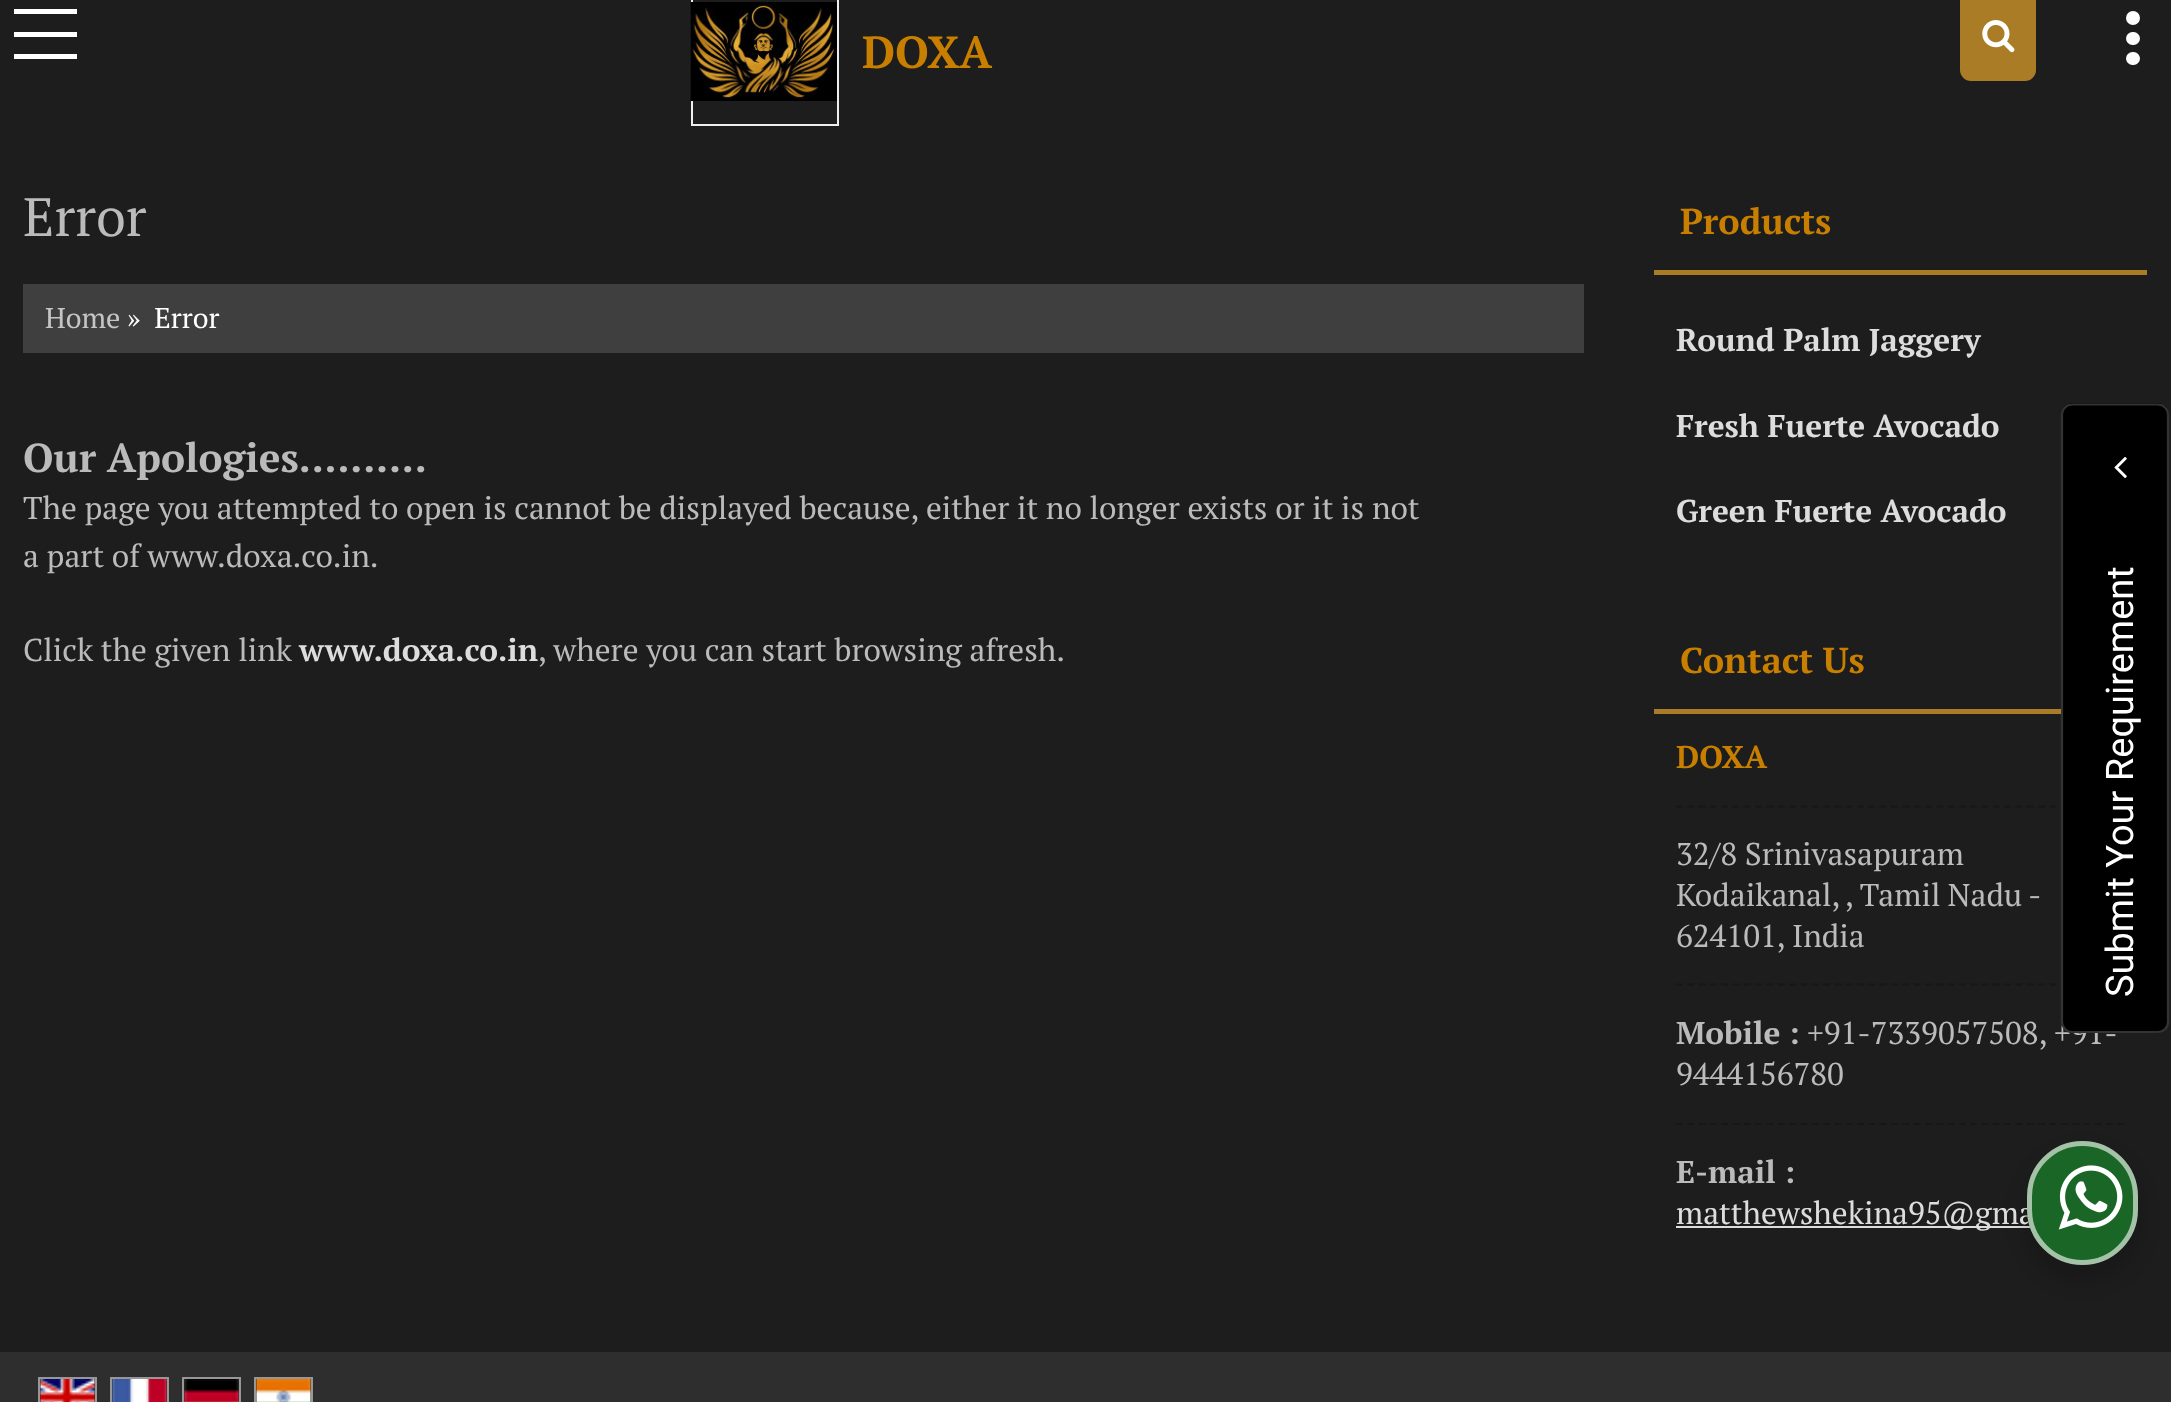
<svg xmlns="http://www.w3.org/2000/svg" xmlns:xlink="http://www.w3.org/1999/xlink" width="2171" height="1402" viewBox="0 0 2171 1402">
<style>
.cls-1{font:bold 45px PT Serif;fill:#c87f00}
.cls-2{font:54px PT Serif;fill:#bbbbbb}
.cls-3{font:28.5px PT Serif;fill:#c5c5c5}
.cls-4{font:28.5px PT Serif;fill:#ffffff}
.cls-5{font:bold 40.5px PT Serif;fill:#bbbbbb}
.cls-6{font:31.5px PT Serif;fill:#bbbbbb}
.cls-7{font:bold 31.5px PT Serif;fill:#dddddd}
.cls-8{font:bold 36px PT Serif;fill:#c87f00}
.cls-9{font:bold 31.5px PT Serif;fill:#c87f00}
.cls-10{font:bold 31.5px PT Serif;fill:#bbbbbb}
.cls-11{font:31.5px PT Serif;fill:#dddddd}
.cls-12{font:38px Roboto;fill:#ffffff}
</style>
<rect width="100%" height="100%" fill="#1d1d1d"/>
<rect fill="#ffffff" x="14" y="32" width="63" height="5"/>
<rect fill="#ffffff" x="14" y="9" width="63" height="5"/>
<rect fill="#ffffff" x="14" y="54" width="63" height="5"/>
<rect fill="#ab7c26" x="1960" y="-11" width="76" height="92" rx="11"/>
<image xlink:href="image0.png" x="1982" y="20" width="33" height="33"/>
<rect fill="none" stroke="#eeeeee" stroke-width="2" x="692" y="-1" width="146" height="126"/>
<image xlink:href="image1.png" x="690" y="2" width="147" height="99"/>
<rect fill="#ffffff" x="2126" y="32" width="14" height="13" rx="6.5"/>
<circle fill="#ffffff" cx="2133" cy="18" r="7"/>
<rect fill="#ffffff" x="2126" y="52" width="14" height="13" rx="6.5"/>
<rect fill="#3f3f3f" x="23" y="284" width="1561" height="69"/>
<rect fill="#ab7c26" x="1654" y="270" width="493" height="5"/>
<rect fill="#ab7c26" x="1654" y="709" width="407" height="5"/>
<path fill="none" stroke="#171717" stroke-width="2.2" stroke-dasharray="6.75 4.57" d="M1676 806.5H2124"/>
<path fill="none" stroke="#171717" stroke-width="2.2" stroke-dasharray="6.75 4.57" d="M1676 984.5H2124"/>
<path fill="none" stroke="#171717" stroke-width="2.2" stroke-dasharray="6.75 4.57" d="M1676 1124H2124"/>
<rect fill="#dddddd" x="1676" y="1226" width="355" height="2"/>
<rect fill="#2e2e2e" x="0" y="1352" width="2171" height="50"/>
<rect fill="none" stroke="#979797" stroke-width="2" x="39" y="1378" width="57" height="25"/>
<rect fill="none" stroke="#979797" stroke-width="2" x="111" y="1378" width="57" height="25"/>
<rect fill="none" stroke="#979797" stroke-width="2" x="183" y="1378" width="57" height="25"/>
<rect fill="none" stroke="#979797" stroke-width="2" x="255" y="1378" width="57" height="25"/>
<image xlink:href="image2.png" x="40" y="1379" width="55" height="23"/>
<image xlink:href="image3.png" x="112" y="1379" width="55" height="23"/>
<image xlink:href="image4.png" x="184" y="1379" width="55" height="23"/>
<image xlink:href="image5.png" x="256" y="1379" width="55" height="23"/>
<rect fill="#000000" fill-opacity="0.14" filter="blur(9px)" x="2023" y="1150" width="119" height="133" rx="59.5"/>
<text class="cls-1" x="862" y="68">DOXA</text>
<text class="cls-2" x="23" y="236">Error</text>
<text class="cls-3" x="45" y="328">Home</text>
<text class="cls-4" xml:space="preserve" x="127" y="328">»  Error</text>
<text class="cls-5" x="23" y="472">Our Apologies..........</text>
<text class="cls-6"><tspan x="23" y="519">The page you attempted to open is cannot be displayed because, either it no longer exists or it is not</tspan><tspan x="23" y="567">a part of www.doxa.co.in.</tspan></text>
<text class="cls-6" x="23" y="661">Click the given link</text>
<text class="cls-7" x="299" y="661">www.doxa.co.in</text>
<text class="cls-6" x="538" y="661">, where you can start browsing afresh.</text>
<text class="cls-8" x="1680" y="234">Products</text>
<text class="cls-7" x="1676" y="351">Round Palm Jaggery</text>
<text class="cls-7" x="1676" y="437">Fresh Fuerte Avocado</text>
<text class="cls-7" x="1676" y="522">Green Fuerte Avocado</text>
<text class="cls-8" x="1680" y="673">Contact Us</text>
<text class="cls-9" x="1676" y="768">DOXA</text>
<text class="cls-6"><tspan x="1676" y="865">32/8 Srinivasapuram</tspan><tspan x="1676" y="906" word-spacing="-0.5">Kodaikanal, , Tamil Nadu -</tspan><tspan x="1676" y="947">624101, India</tspan></text>
<text class="cls-10" x="1676" y="1044">Mobile :</text>
<text class="cls-6" x="1807" y="1044">+91-7339057508, +91-</text>
<text class="cls-6" x="1676" y="1085">9444156780</text>
<text class="cls-10" x="1676" y="1183">E-mail :</text>
<text class="cls-11" x="1676" y="1224">matthewshekina95@gma</text>
<path fill="#000000" d="M2061 1022V414C2061 408 2066 403 2072 403H2158C2164 403 2169 408 2169 414V1022C2169 1028 2164 1033 2158 1033H2072C2066 1033 2061 1028 2061 1022Z"/>
<path fill="none" stroke="#ffffff" stroke-opacity="0.2" stroke-width="2.2" d="M2062 1022V414.5C2062 409 2066.5 404.5 2072 404.5H2158C2163.5 404.5 2168 409 2168 414.5V1022C2168 1027.5 2163.5 1032 2158 1032H2072C2066.5 1032 2062 1027.5 2062 1022Z"/>
<image xlink:href="image6.png" x="2114" y="457" width="13" height="21"/>
<text class="cls-12" x="2133" y="997" transform="rotate(-90 2133 997)">Submit Your Requirement</text>
<rect fill="#196626" x="2027" y="1141" width="111" height="124" rx="55.5"/>
<rect fill="none" stroke="#ffffff" stroke-opacity="0.6" stroke-width="5" x="2029.5" y="1143.5" width="106" height="119" rx="53"/>
<image xlink:href="image7.png" x="2058" y="1165" width="65" height="65"/>
</svg>
